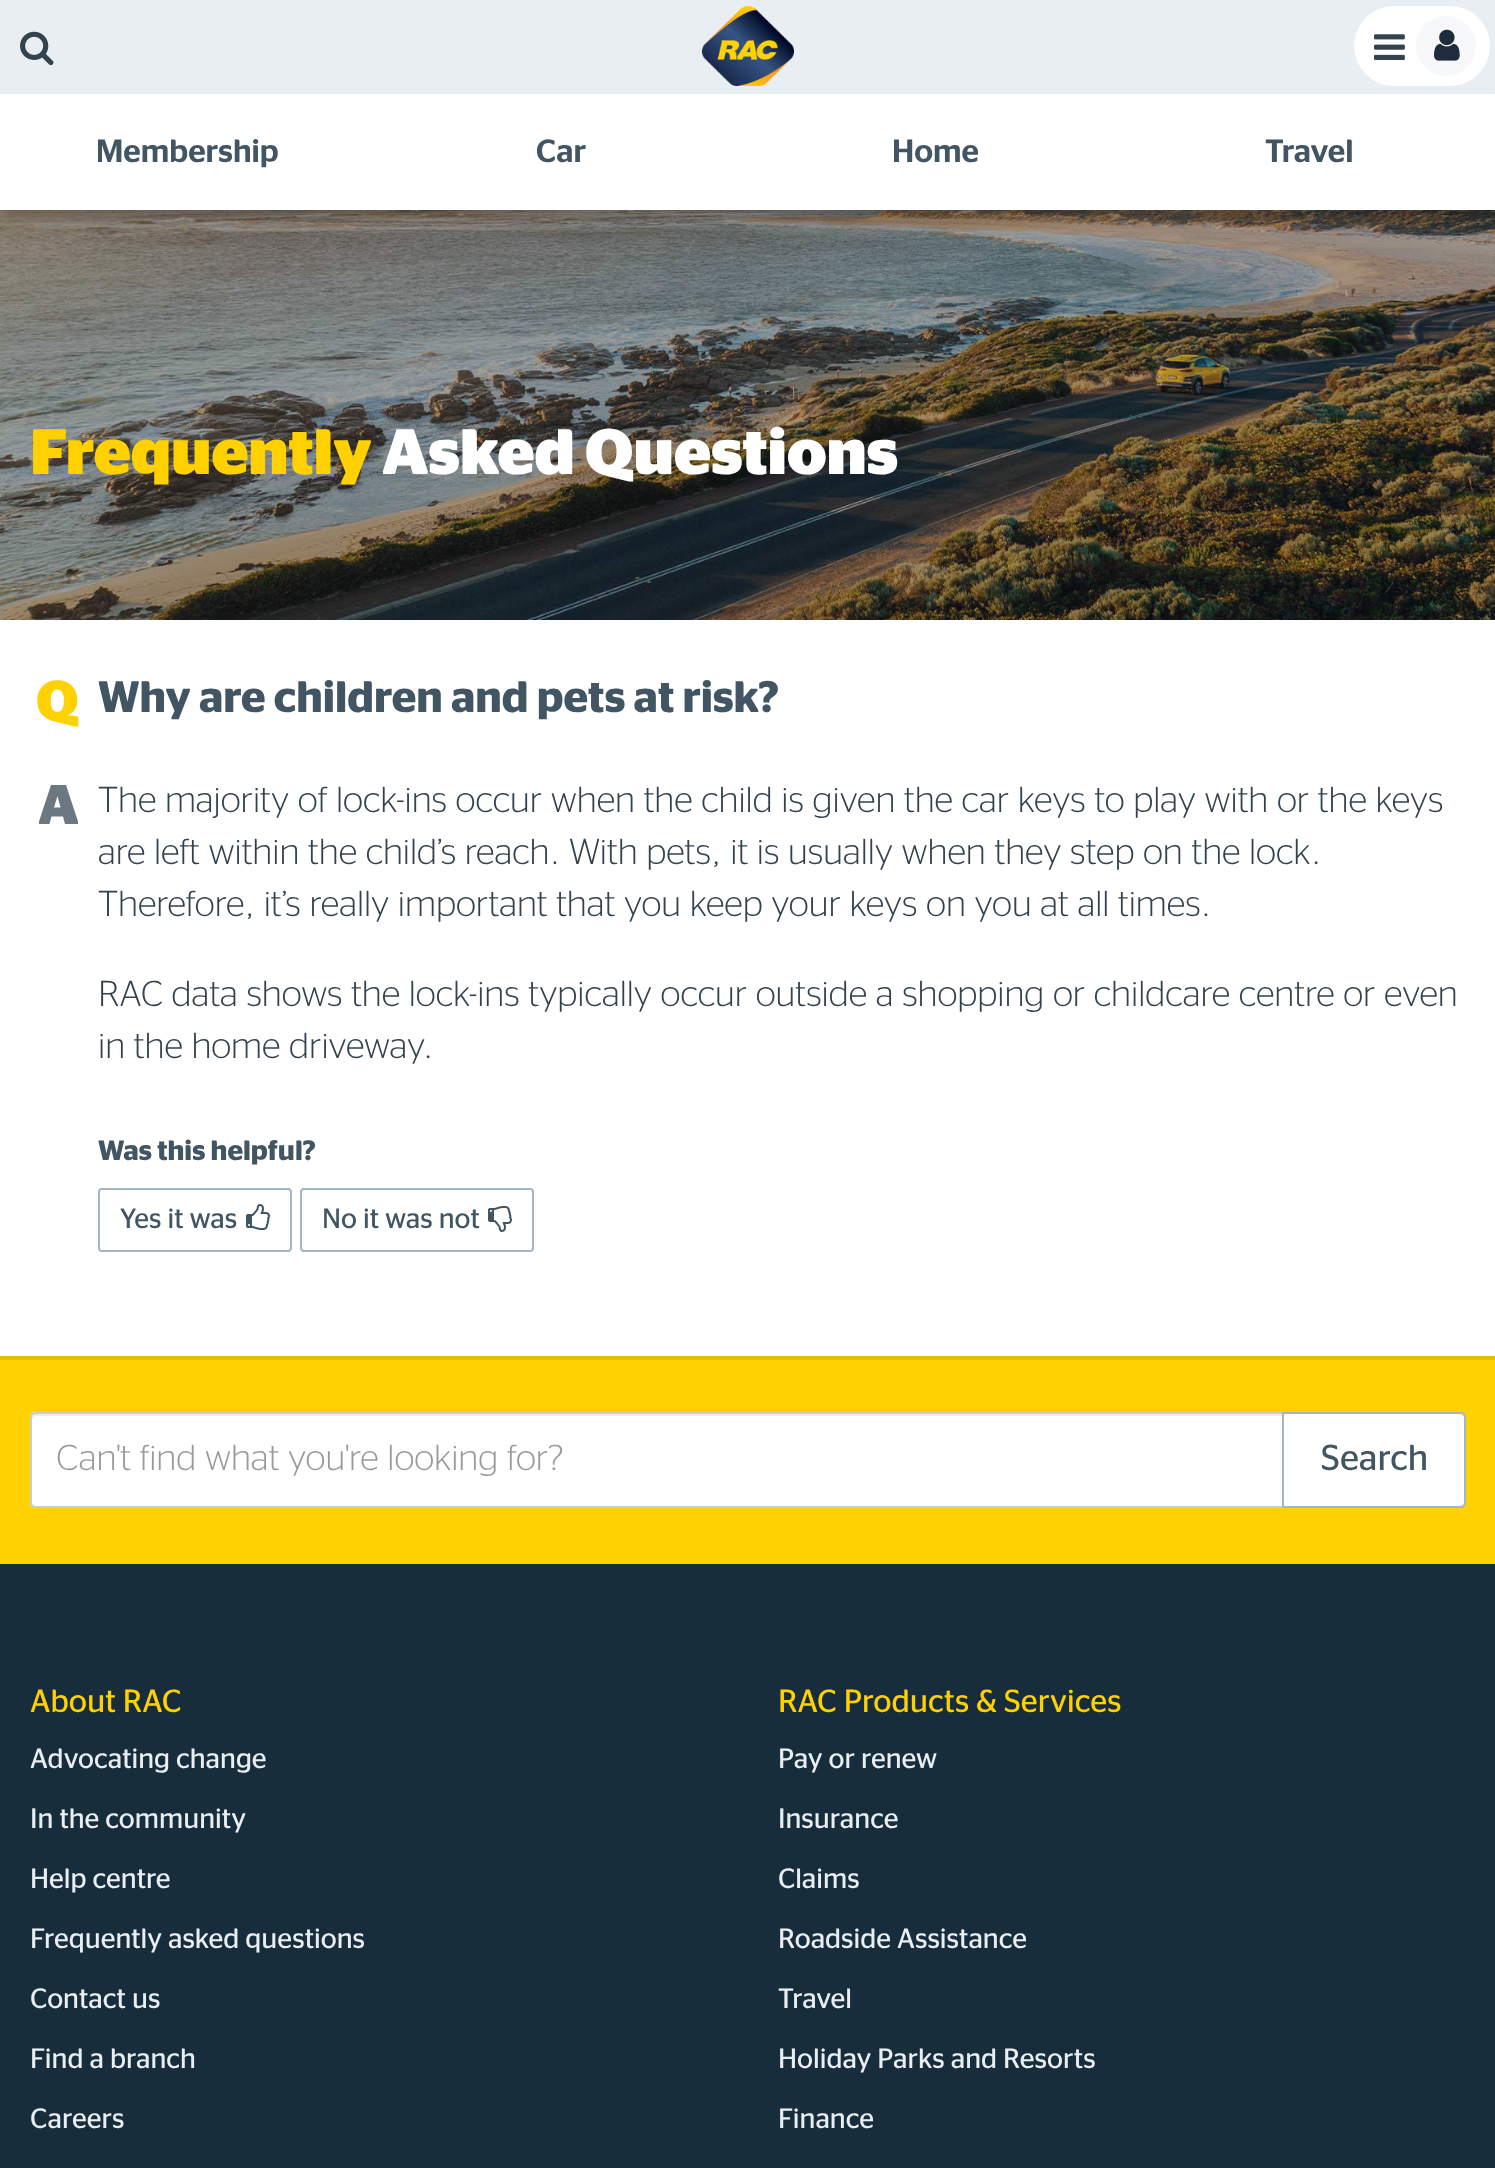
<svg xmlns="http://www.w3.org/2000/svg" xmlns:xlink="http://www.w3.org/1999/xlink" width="1495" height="2168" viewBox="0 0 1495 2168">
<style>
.cls-1{font:500 32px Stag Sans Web;fill:#425563}
.cls-2{font:bold 64px Stag Sans Web;fill:#ffd100}
.cls-3{font:bold 64px Stag Sans Web;fill:#ffffff}
.cls-4{font:600 44px Stag Sans Web;fill:#425563}
.cls-5{font:300 36px Stag Sans Web;fill:#33424d}
.cls-6{font:600 28px Stag Sans Web;fill:#425563}
.cls-7{font:28px Stag Sans Web;fill:#425563}
.cls-8{font:300 36px Stag Sans Web;fill:#999999}
.cls-9{font:36px Stag Sans Web;fill:#425563}
.cls-10{font:32px Stag Sans Web;fill:#ffd100}
.cls-11{font:28px Stag Sans Web;fill:#e9eef2}
</style>
<defs>
<clipPath id="clip1"><rect x="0" y="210" width="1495" height="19"/></clipPath>
</defs>
<rect width="100%" height="100%" fill="#ffffff"/>
<image xlink:href="image4.png" x="0" y="210" width="1495" height="410"/>
<g clip-path="url(#clip1)">
<rect fill="#000000" fill-opacity="0.25" filter="blur(8px)" x="0" y="8" width="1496" height="210"/>
</g>
<rect fill="#e9eef2" x="0" y="0" width="1495" height="94"/>
<image xlink:href="image0.png" x="20" y="31" width="34" height="35"/>
<image xlink:href="image1.png" x="702" y="6" width="92" height="80"/>
<rect fill="#ffffff" x="1354" y="6" width="136" height="80" rx="40"/>
<image xlink:href="image2.png" x="1374" y="34" width="31" height="26"/>
<circle fill="#f6f8fa" cx="1446" cy="46" r="30"/>
<image xlink:href="image3.png" x="1434" y="29" width="26" height="32"/>
<image xlink:href="image5.png" x="37" y="680" width="42" height="47"/>
<path fill="#6b7882" d="M39 821.5L51 785H66L78 821.5V824H65L63 816.5H51.5L49.5 824H39ZM54 807.5H60.5L57.5 796Z"/>
<rect fill="none" stroke="#a5b6c2" stroke-width="2" x="99" y="1189" width="192" height="62" rx="3"/>
<image xlink:href="image6.png" x="246" y="1204" width="24" height="26"/>
<rect fill="none" stroke="#a5b6c2" stroke-width="2" x="301" y="1189" width="232" height="62" rx="3"/>
<image xlink:href="image7.png" x="488" y="1206" width="24" height="26"/>
<rect fill="#ffd100" x="0" y="1360" width="1495" height="204"/>
<rect fill="#e6bc00" x="0" y="1356" width="1495" height="4"/>
<path fill="#ffffff" d="M36 1412H1284V1508H36C32.5 1508 30 1505.5 30 1502V1418C30 1414.5 32.5 1412 36 1412Z"/>
<path fill="#ececec" d="M36 1416H1282V1414H36C32 1414 32 1417 32 1420C32 1418 34 1416 36 1416Z"/>
<path fill="none" stroke="#cccccc" stroke-width="2" d="M36 1413H1283V1507H36C33 1507 31 1505 31 1502V1418C31 1415 33 1413 36 1413Z"/>
<path fill="#ffffff" stroke="#a5b6c2" stroke-width="2" d="M1283 1413H1460C1463 1413 1465 1415 1465 1418V1502C1465 1505 1463 1507 1460 1507H1283Z"/>
<rect fill="#182d3c" x="0" y="1564" width="1495" height="604"/>
<text class="cls-1" x="96" y="162">Membership</text>
<text class="cls-1" x="536" y="162">Car</text>
<text class="cls-1" x="892" y="162">Home</text>
<text class="cls-1" x="1265" y="162">Travel</text>
<text class="cls-2" x="30" y="474">Frequently</text>
<text class="cls-3" x="382" y="474">Asked Questions</text>
<text class="cls-4" x="98" y="712">Why are children and pets at risk?</text>
<text class="cls-5"><tspan x="98" y="812">The majority of lock-ins occur when the child is given the car keys to play with or the keys</tspan><tspan x="98" y="864">are left within the child’s reach. With pets, it is usually when they step on the lock.</tspan><tspan x="98" y="916">Therefore, it’s really important that you keep your keys on you at all times.</tspan></text>
<text class="cls-5"><tspan x="98" y="1006">RAC data shows the lock-ins typically occur outside a shopping or childcare centre or even</tspan><tspan x="98" y="1058">in the home driveway.</tspan></text>
<text class="cls-6" x="98" y="1160">Was this helpful?</text>
<text class="cls-7" x="120" y="1228">Yes it was</text>
<text class="cls-7" x="322" y="1228">No it was not</text>
<text class="cls-8" x="56" y="1470">Can't find what you're looking for?</text>
<text class="cls-9" x="1321" y="1470">Search</text>
<text class="cls-10" x="30" y="1712">About RAC</text>
<text class="cls-11" x="30" y="1768">Advocating change</text>
<text class="cls-11" x="30" y="1828">In the community</text>
<text class="cls-11" x="30" y="1888">Help centre</text>
<text class="cls-11" x="30" y="1948">Frequently asked questions</text>
<text class="cls-11" x="30" y="2008">Contact us</text>
<text class="cls-11" x="30" y="2068">Find a branch</text>
<text class="cls-11" x="30" y="2128">Careers</text>
<text class="cls-10" x="778" y="1712">RAC Products &amp; Services</text>
<text class="cls-11" x="778" y="1768">Pay or renew</text>
<text class="cls-11" x="778" y="1828">Insurance</text>
<text class="cls-11" x="778" y="1888">Claims</text>
<text class="cls-11" x="778" y="1948">Roadside Assistance</text>
<text class="cls-11" x="778" y="2008">Travel</text>
<text class="cls-11" x="778" y="2068">Holiday Parks and Resorts</text>
<text class="cls-11" x="778" y="2128">Finance</text>
</svg>
